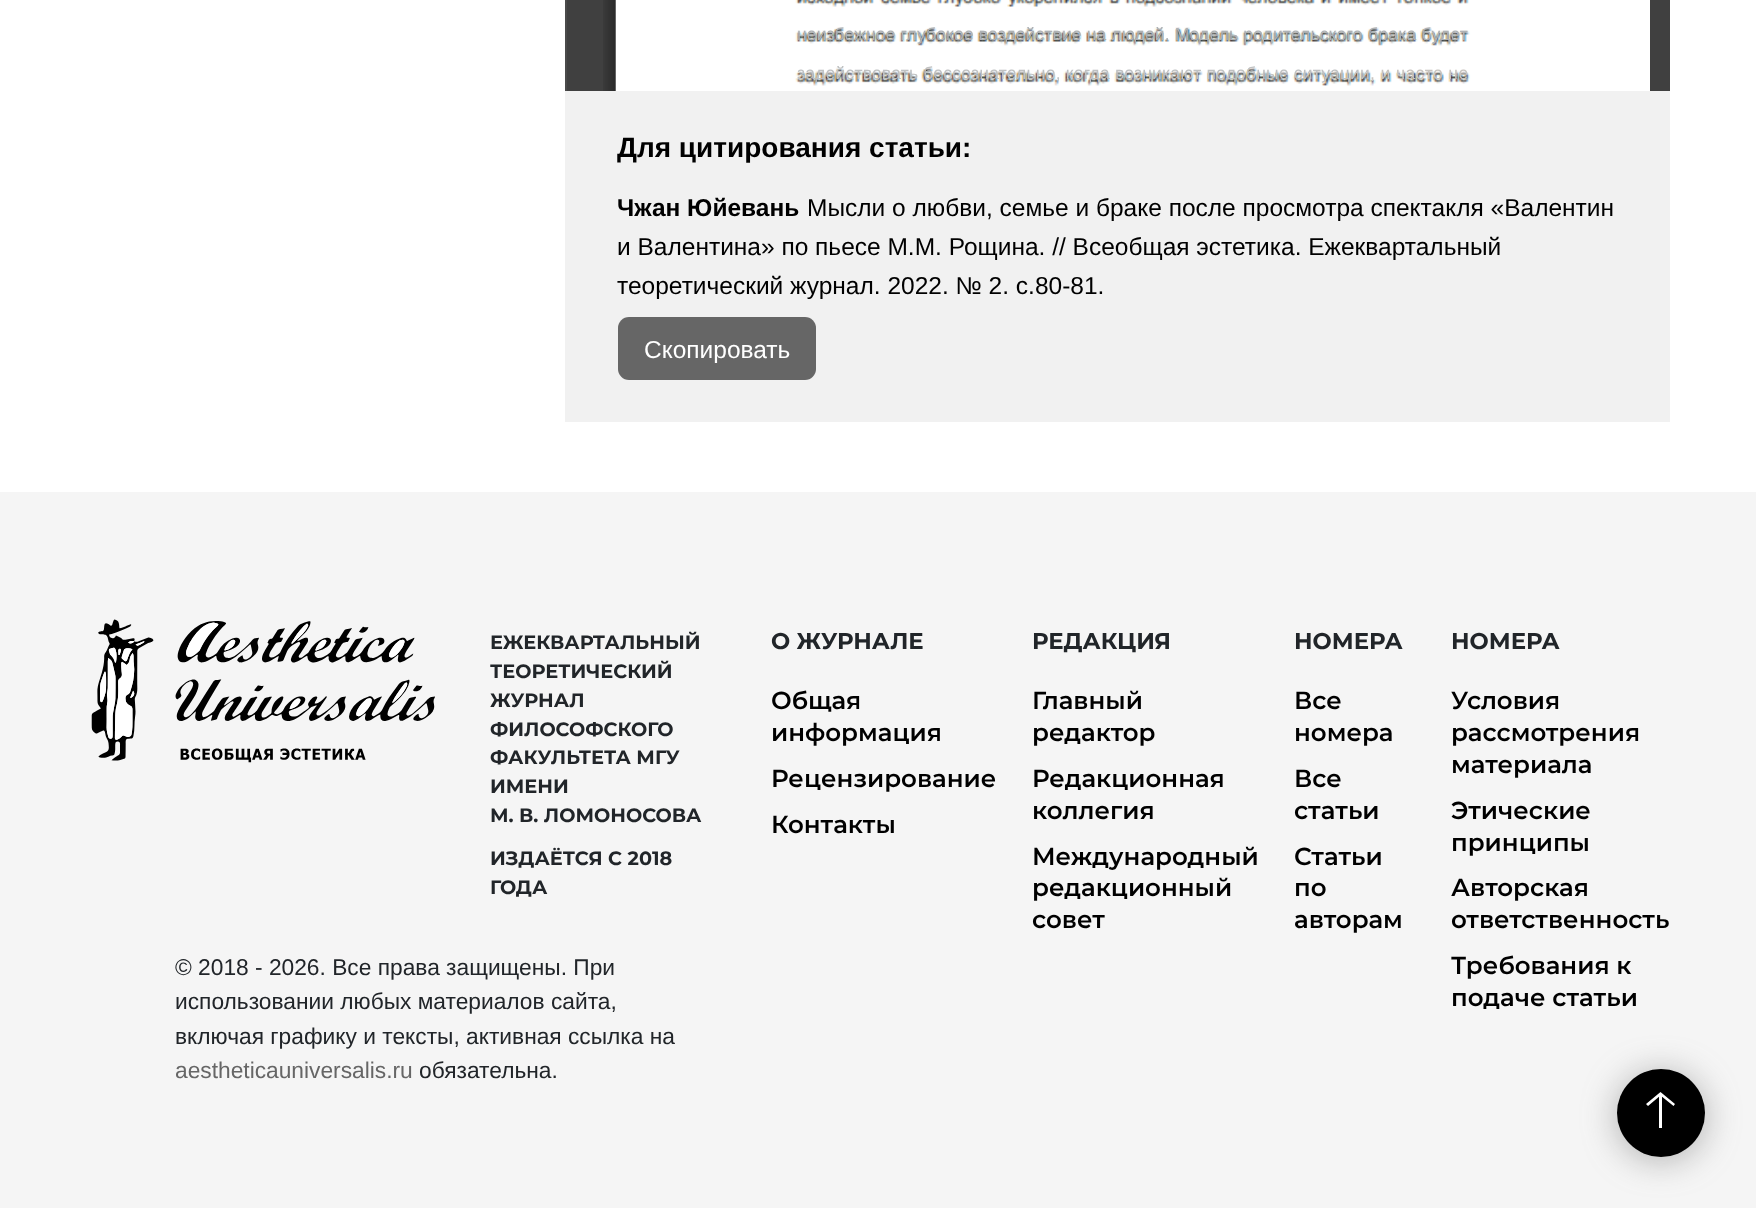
<svg xmlns="http://www.w3.org/2000/svg" xmlns:xlink="http://www.w3.org/1999/xlink" width="1756" height="1208" viewBox="0 0 1756 1208">
<style>
.cls-1{font:17.5px Liberation Sans;letter-spacing:0.13px;fill:#aeb2b5}
.cls-2{font:17.5px Liberation Sans;letter-spacing:0.25px;fill:#aeb2b5}
.cls-3{font:17.5px Liberation Sans;letter-spacing:0.2px;fill:#bfc1c2}
.cls-4{font:17.5px Liberation Sans;letter-spacing:0.4px;fill:#c8c4bf}
.cls-5{font:bold 28px Liberation Sans;fill:#000000}
.cls-6{font:bold 24.5px Liberation Sans;fill:#000000}
.cls-7{font:24.5px Liberation Sans;fill:#000000}
.cls-8{font:24.5px Liberation Sans;fill:#ffffff}
.cls-9{font:bold 19.25px Montserrat;fill:#212529}
.cls-10{font:22.75px Liberation Sans;fill:#212529}
.cls-11{font:22.75px Liberation Sans;fill:#666666}
.cls-12{font:bold 22.75px Montserrat;fill:#212529}
.cls-13{font:600 24.5px Montserrat;fill:#000000}
</style>
<rect width="100%" height="100%" fill="#ffffff"/>
<rect fill="#404040" x="567" y="0" width="1103" height="91"/>
<rect fill="#4a4a4a" x="565" y="0" width="2" height="91"/>
<image xlink:href="image0.png" x="603" y="0" width="13" height="91"/>
<image xlink:href="image1.png" x="615" y="0" width="1035" height="91"/>
<rect fill="#f1f1f1" x="565" y="91" width="1105" height="331"/>
<rect fill="#666666" x="618" y="317" width="198" height="63" rx="11"/>
<rect fill="#f5f5f5" x="0" y="492" width="1756" height="716"/>
<image xlink:href="image2.png" x="91" y="619" width="344" height="144"/>
<rect fill="#696969" fill-opacity="0.5" filter="blur(17.5px)" x="1617" y="1073" width="88" height="87" rx="43.5"/>
<circle fill="#000000" cx="1661" cy="1113" r="44"/>
<path fill="#ffffff" d="M1673.5 1106L1660.5 1095.5L1648 1106L1646 1104L1660.5 1092L1675 1104Z"/>
<rect fill="#ffffff" x="1659" y="1094" width="3" height="34"/>
<text class="cls-1" x="797" y="40">неизбежное глубокое воздействие на людей. Модель родительского</text>
<text class="cls-2" x="1368" y="40">брака будет</text>
<text class="cls-3" x="797" y="79">задействовать бессознательно, когда возникают подобные ситуации</text>
<text class="cls-4" x="1370" y="79">, и часто не</text>
<text class="cls-5" x="617" y="157">Для цитирования статьи:</text>
<text class="cls-6" x="617" y="216">Чжан Юйевань</text>
<text class="cls-7" x="807" y="216">Мысли о любви, семье и браке после просмотра спектакля «Валентин</text>
<text class="cls-7"><tspan x="617" y="255">и Валентина» по пьесе М.М. Рощина. // Всеобщая эстетика. Ежеквартальный</tspan><tspan x="617" y="294">теоретический журнал. 2022. № 2. c.80-81.</tspan></text>
<text class="cls-8" x="644" y="358">Скопировать</text>
<text class="cls-9"><tspan x="490" y="649">ЕЖЕКВАРТАЛЬНЫЙ</tspan><tspan x="490" y="678">ТЕОРЕТИЧЕСКИЙ</tspan><tspan x="490" y="707">ЖУРНАЛ</tspan><tspan x="490" y="736">ФИЛОСОФСКОГО</tspan><tspan x="490" y="764">ФАКУЛЬТЕТА МГУ</tspan><tspan x="490" y="793">ИМЕНИ</tspan><tspan x="490" y="822">М. В. ЛОМОНОСОВА</tspan></text>
<text class="cls-9"><tspan x="490" y="865">ИЗДАЁТСЯ С 2018</tspan><tspan x="490" y="894">ГОДА</tspan></text>
<text class="cls-10"><tspan x="175" y="975">© 2018 - 2026. Все права защищены. При</tspan><tspan x="175" y="1009">использовании любых материалов сайта,</tspan><tspan x="175" y="1044">включая графику и тексты, активная ссылка на</tspan></text>
<text class="cls-11" x="175" y="1078">aestheticauniversalis.ru</text>
<text class="cls-10" x="419" y="1078">обязательна.</text>
<text class="cls-12" x="771" y="649">О ЖУРНАЛЕ</text>
<text class="cls-13"><tspan x="771" y="709">Общая</tspan><tspan x="771" y="741">информация</tspan><tspan x="771" y="787">Рецензирование</tspan><tspan x="771" y="833">Контакты</tspan></text>
<text class="cls-12" x="1032" y="649">РЕДАКЦИЯ</text>
<text class="cls-13"><tspan x="1032" y="709">Главный</tspan><tspan x="1032" y="741">редактор</tspan><tspan x="1032" y="787">Редакционная</tspan><tspan x="1032" y="819">коллегия</tspan><tspan x="1032" y="865">Международный</tspan><tspan x="1032" y="896">редакционный</tspan><tspan x="1032" y="928">совет</tspan></text>
<text class="cls-12" x="1294" y="649">НОМЕРА</text>
<text class="cls-13"><tspan x="1294" y="709">Все</tspan><tspan x="1294" y="741">номера</tspan><tspan x="1294" y="787">Все</tspan><tspan x="1294" y="819">статьи</tspan><tspan x="1294" y="865">Статьи</tspan><tspan x="1294" y="896">по</tspan><tspan x="1294" y="928">авторам</tspan></text>
<text class="cls-12" x="1451" y="649">НОМЕРА</text>
<text class="cls-13"><tspan x="1451" y="709">Условия</tspan><tspan x="1451" y="741">рассмотрения</tspan><tspan x="1451" y="773">материала</tspan><tspan x="1451" y="819">Этические</tspan><tspan x="1451" y="851">принципы</tspan><tspan x="1451" y="896">Авторская</tspan><tspan x="1451" y="928">ответственность</tspan><tspan x="1451" y="974">Требования к</tspan><tspan x="1451" y="1006">подаче статьи</tspan></text>
</svg>
